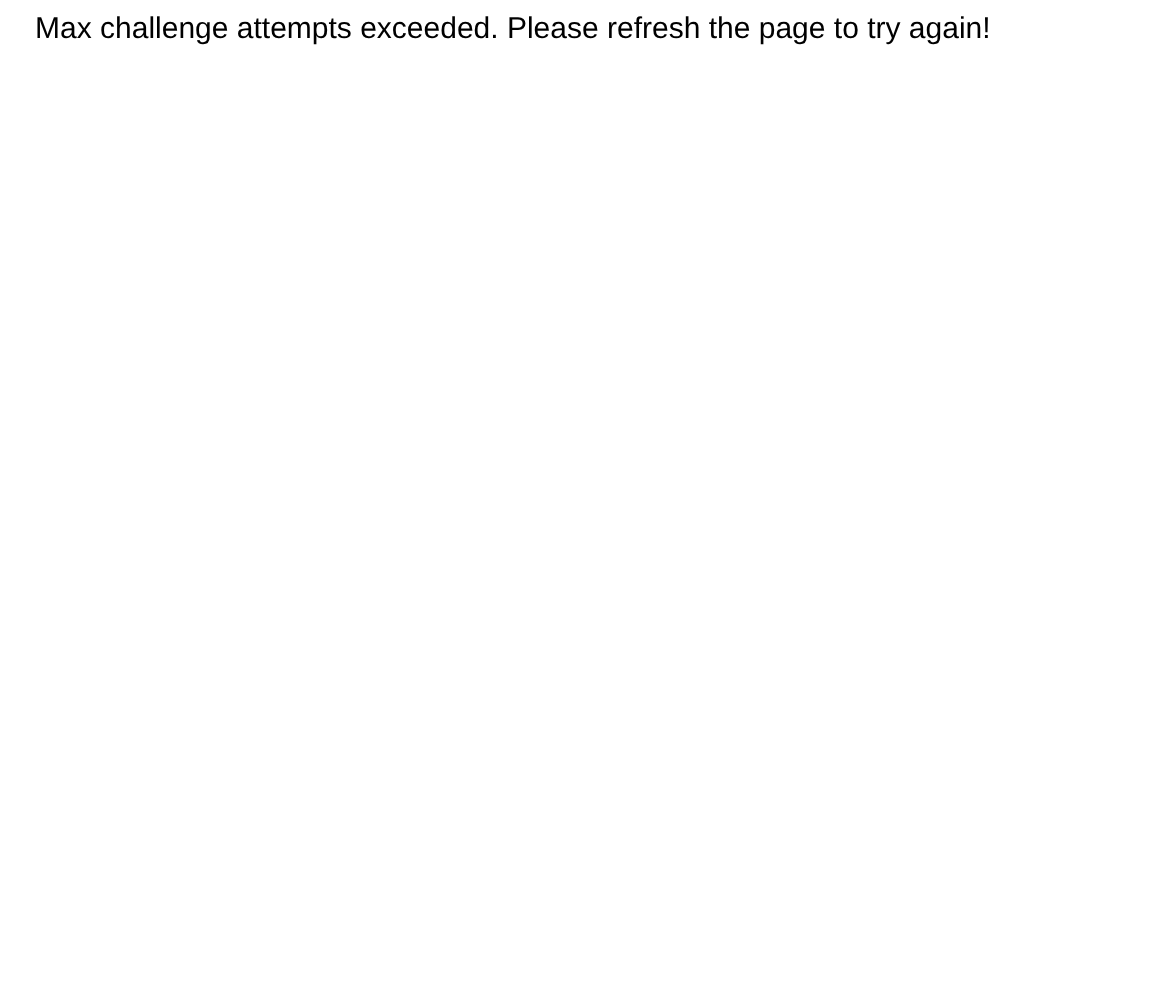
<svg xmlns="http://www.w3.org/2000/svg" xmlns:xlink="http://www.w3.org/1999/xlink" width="1176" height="997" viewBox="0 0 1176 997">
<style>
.cls-1{font:30px Liberation Sans;fill:#000000}
</style>
<rect width="100%" height="100%" fill="#ffffff"/>
<text class="cls-1" x="35" y="38">Max challenge attempts exceeded. Please refresh the page to try again!</text>
</svg>
